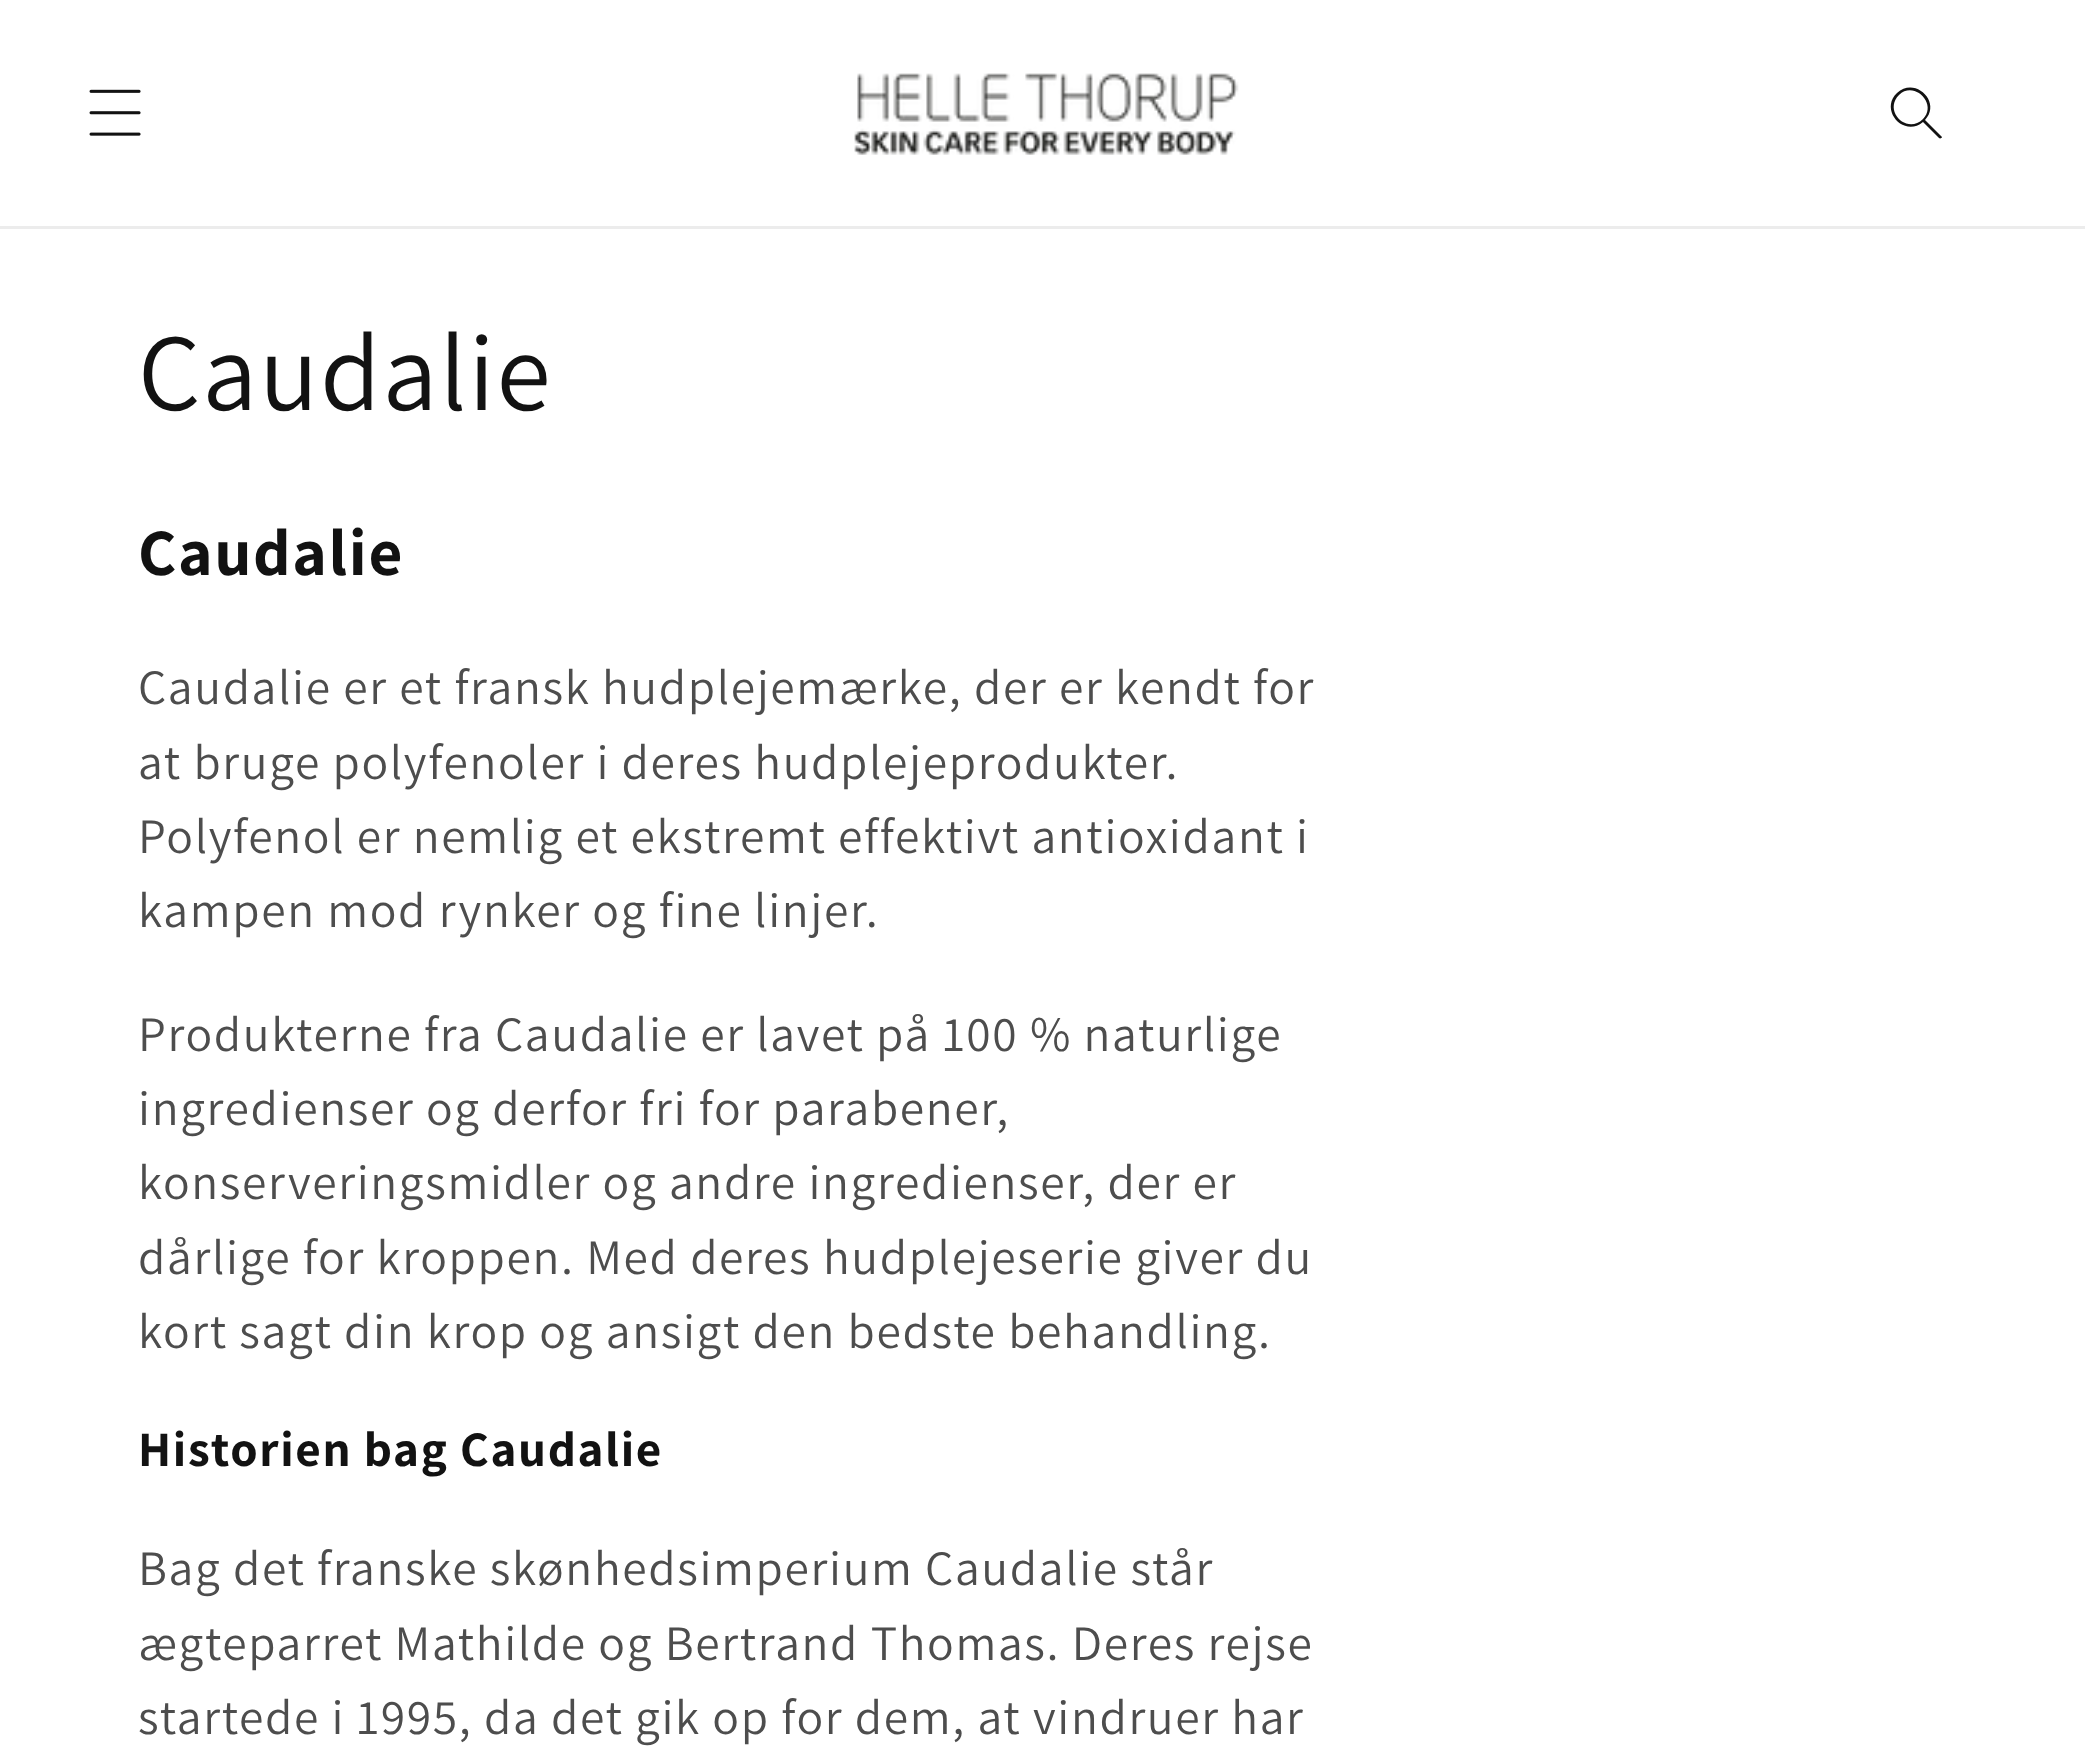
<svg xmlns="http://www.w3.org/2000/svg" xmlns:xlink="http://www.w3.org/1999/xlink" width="2085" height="1761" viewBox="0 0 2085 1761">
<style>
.cls-1{font:110px Assistant;letter-spacing:1.65px;fill:#121212}
.cls-2{font:bold 66px Assistant;letter-spacing:1.65px;fill:#121212}
.cls-3{font:49.5px Assistant;letter-spacing:1.65px;fill:#4d4d4d}
.cls-4{font:bold 49.5px Assistant;letter-spacing:1.65px;fill:#121212}
</style>
<rect width="100%" height="100%" fill="#ffffff"/>
<rect fill="#ececec" x="0" y="226" width="2085" height="3"/>
<image xlink:href="image0.png" x="89" y="89" width="52" height="47"/>
<image xlink:href="image1.png" x="854" y="73" width="385" height="82"/>
<path fill="#121212" fill-rule="evenodd" d="M1923 119C1907 135 1883 111 1899 95C1914 80 1938 104 1923 119M1923 122C1904 138 1879 110 1897 93C1915 76 1942 102 1925 120L1942 137C1942 138 1940 139 1939 138Z"/>
<text class="cls-1" x="138" y="410">Caudalie</text>
<text class="cls-2" x="138" y="575">Caudalie</text>
<text class="cls-3"><tspan x="138" y="704">Caudalie er et fransk hudplejemærke, der er kendt for</tspan><tspan x="138" y="779">at bruge polyfenoler i deres hudplejeprodukter.</tspan><tspan x="138" y="853">Polyfenol er nemlig et ekstremt effektivt antioxidant i</tspan><tspan x="138" y="927">kampen mod rynker og fine linjer.</tspan></text>
<text class="cls-3"><tspan x="138" y="1051">Produkterne fra Caudalie er lavet på 100 % naturlige</tspan><tspan x="138" y="1125">ingredienser og derfor fri for parabener,</tspan><tspan x="138" y="1199">konserveringsmidler og andre ingredienser, der er</tspan><tspan x="138" y="1274">dårlige for kroppen. Med deres hudplejeserie giver du</tspan><tspan x="138" y="1348">kort sagt din krop og ansigt den bedste behandling.</tspan></text>
<text class="cls-4" x="138" y="1466">Historien bag Caudalie</text>
<text class="cls-3"><tspan x="138" y="1585">Bag det franske skønhedsimperium Caudalie står</tspan><tspan x="138" y="1660">ægteparret Mathilde og Bertrand Thomas. Deres rejse</tspan><tspan x="138" y="1734">startede i 1995, da det gik op for dem, at vindruer har</tspan></text>
</svg>
